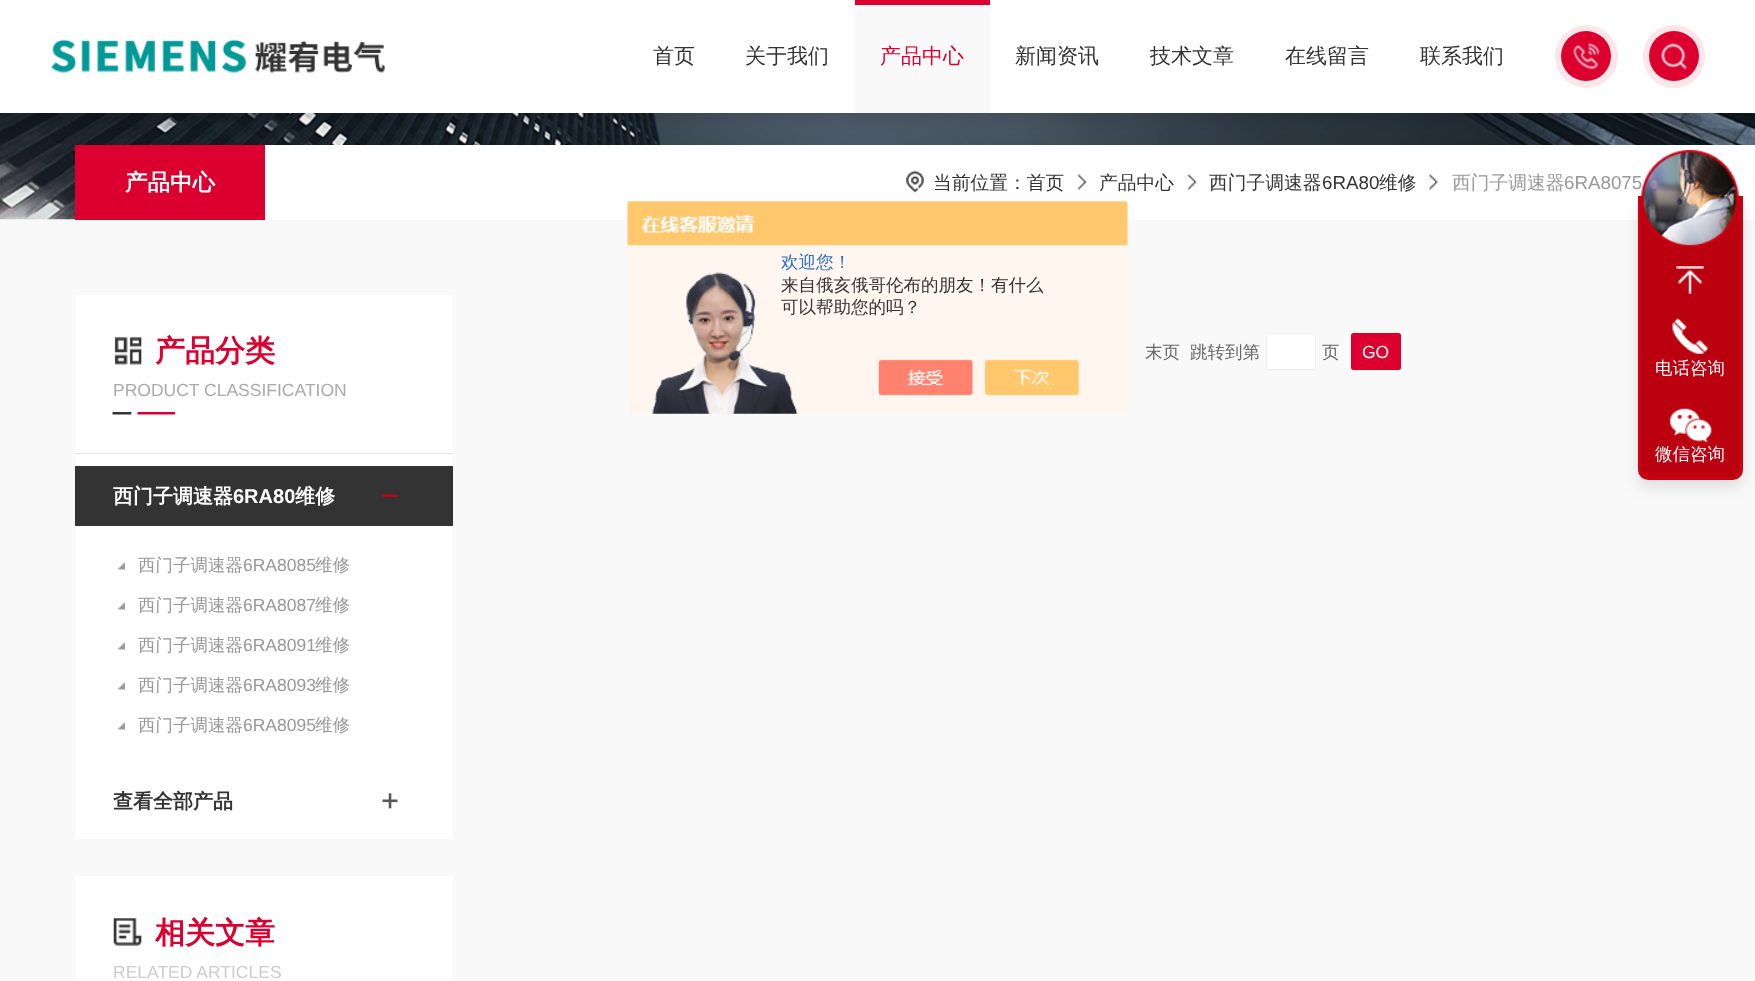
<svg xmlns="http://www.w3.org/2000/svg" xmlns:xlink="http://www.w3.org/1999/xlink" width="1755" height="981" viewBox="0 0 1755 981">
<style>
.cls-1{font:500 21px WenQuanYi Zen Hei;fill:#333333}
.cls-2{font:500 21px WenQuanYi Zen Hei;fill:#dc002f}
.cls-3{font:bold 22.5px WenQuanYi Zen Hei;fill:#ffffff}
.cls-4{font:500 18.75px WenQuanYi Zen Hei;fill:#333333}
.cls-5{font:18.75px Liberation Sans;fill:#333333}
.cls-6{font:500 18.75px WenQuanYi Zen Hei;fill:#999999}
.cls-7{font:18.75px Liberation Sans;fill:#999999}
.cls-8{font:500 17.5px WenQuanYi Zen Hei;fill:#2e6ec6}
.cls-9{font:500 17.5px WenQuanYi Zen Hei;fill:#333333}
.cls-10{font:bold 30px WenQuanYi Zen Hei;fill:#dc002f}
.cls-11{font:17.5px Liberation Sans;fill:#aaaaaa}
.cls-12{font:bold 20px WenQuanYi Zen Hei;fill:#ffffff}
.cls-13{font:bold 20px Liberation Sans;fill:#ffffff}
.cls-14{font:500 17.5px WenQuanYi Zen Hei;fill:#999999}
.cls-15{font:17.5px Liberation Sans;fill:#999999}
.cls-16{font:bold 20px WenQuanYi Zen Hei;fill:#333333}
.cls-17{font:17.5px Liberation Sans;fill:#cccccc}
.cls-18{font:500 17.5px WenQuanYi Zen Hei;fill:#666666}
.cls-19{font:17.5px Liberation Sans;fill:#ffffff}
.cls-20{font:500 17.5px WenQuanYi Zen Hei;fill:#ffffff}
</style>
<rect width="100%" height="100%" fill="#f9f9f9"/>
<image xlink:href="image3.png" x="0" y="113" width="1755" height="107"/>
<rect fill="#000000" fill-opacity="0.1" filter="blur(6px)" x="0" y="6" width="1755" height="113"/>
<rect fill="#ffffff" x="0" y="0" width="1755" height="113"/>
<image xlink:href="image0.png" x="51" y="39" width="334" height="34"/>
<rect fill="#f9f9f9" x="855" y="5" width="135" height="108"/>
<rect fill="#dc002f" x="855" y="0" width="135" height="5"/>
<circle fill="#fce6ea" cx="1586.5" cy="56.5" r="31.5"/>
<circle fill="#dc002f" cx="1586" cy="56" r="25"/>
<image xlink:href="image1.png" x="1573" y="43" width="27" height="27"/>
<rect fill="#fce6ea" x="1643" y="25" width="62" height="63" rx="31"/>
<circle fill="#dc002f" cx="1674" cy="56" r="25"/>
<image xlink:href="image2.png" x="1661" y="43" width="26" height="27"/>
<rect fill="#ffffff" x="265" y="145" width="1490" height="75"/>
<rect fill="#dc002f" x="75" y="145" width="190" height="75"/>
<image xlink:href="image4.png" x="906" y="170" width="18" height="23"/>
<image xlink:href="image5.png" x="1077" y="174" width="10" height="16"/>
<image xlink:href="image5.png" x="1187" y="174" width="10" height="16"/>
<image xlink:href="image6.png" x="1428" y="174" width="10" height="16"/>
<image xlink:href="image7.png" x="627" y="201" width="501" height="213"/>
<rect fill="#ffffff" x="75" y="295" width="378" height="544"/>
<rect fill="#e5e5e5" x="75" y="453" width="378" height="1"/>
<image xlink:href="image8.png" x="114" y="336" width="28" height="29"/>
<image xlink:href="image9.png" x="112" y="412" width="63" height="3"/>
<rect fill="#333333" x="75" y="466" width="378" height="60"/>
<image xlink:href="image10.png" x="382" y="494" width="16" height="4"/>
<image xlink:href="image11.png" x="117" y="562" width="8" height="8"/>
<image xlink:href="image11.png" x="117" y="602" width="8" height="8"/>
<image xlink:href="image11.png" x="117" y="642" width="8" height="8"/>
<image xlink:href="image11.png" x="117" y="682" width="8" height="8"/>
<image xlink:href="image11.png" x="117" y="722" width="8" height="8"/>
<image xlink:href="image12.png" x="382" y="793" width="16" height="16"/>
<rect fill="#ffffff" x="75" y="876" width="378" height="105"/>
<image xlink:href="image13.png" x="113" y="918" width="29" height="28"/>
<rect fill="#ffffff" stroke="#efefef" x="1266.5" y="333.5" width="49" height="36" rx="2"/>
<rect fill="#dc002f" x="1351" y="333" width="50" height="37" rx="2.5"/>
<rect fill="#000000" fill-opacity="0.1" filter="blur(7.5px)" x="1638" y="204" width="105" height="284" rx="10"/>
<path fill="#bb000f" stroke="#cb0010" stroke-width="3" d="M1639.5 197.5H1741.5V470C1741.5 474.5 1737.5 478.5 1733 478.5H1648C1643.5 478.5 1639.5 474.5 1639.5 470Z"/>
<image xlink:href="image15.png" x="1676" y="266" width="28" height="28"/>
<image xlink:href="image16.png" x="1672" y="318" width="36" height="36"/>
<image xlink:href="image17.png" x="1669" y="408" width="43" height="35"/>
<text class="cls-1" x="653" y="63">首页</text>
<text class="cls-1" x="745" y="63">关于我们</text>
<text class="cls-2" x="880" y="63">产品中心</text>
<text class="cls-1" x="1015" y="63">新闻资讯</text>
<text class="cls-1" x="1150" y="63">技术文章</text>
<text class="cls-1" x="1285" y="63">在线留言</text>
<text class="cls-1" x="1420" y="63">联系我们</text>
<text class="cls-3" x="125" y="190">产品中心</text>
<text class="cls-4" x="933" y="189">当前位置：首页</text>
<text class="cls-4" x="1099" y="189">产品中心</text>
<text class="cls-4" x="1209" y="189">西门子调速器</text>
<text class="cls-5" x="1322" y="189">6RA80</text>
<text class="cls-4" x="1379" y="189">维修</text>
<text class="cls-6" x="1452" y="189">西门子调速器</text>
<text class="cls-7" x="1564" y="189">6RA8075</text>
<text class="cls-8" x="781" y="268">欢迎您！</text>
<text class="cls-9"><tspan x="781" y="291">来自俄亥俄哥伦布的朋友！有什么</tspan><tspan x="781" y="313">可以帮助您的吗？</tspan></text>
<text class="cls-10" x="155" y="361">产品分类</text>
<text class="cls-11" x="113" y="396">PRODUCT CLASSIFICATION</text>
<text class="cls-12" x="113" y="503">西门子调速器</text>
<text class="cls-13" x="233" y="503">6RA80</text>
<text class="cls-12" x="295" y="503">维修</text>
<text class="cls-14" x="138" y="571">西门子调速器</text>
<text class="cls-15" x="243" y="571">6RA8085</text>
<text class="cls-14" x="315" y="571">维修</text>
<text class="cls-14" x="138" y="611">西门子调速器</text>
<text class="cls-15" x="243" y="611">6RA8087</text>
<text class="cls-14" x="315" y="611">维修</text>
<text class="cls-14" x="138" y="651">西门子调速器</text>
<text class="cls-15" x="243" y="651">6RA8091</text>
<text class="cls-14" x="315" y="651">维修</text>
<text class="cls-14" x="138" y="691">西门子调速器</text>
<text class="cls-15" x="243" y="691">6RA8093</text>
<text class="cls-14" x="315" y="691">维修</text>
<text class="cls-14" x="138" y="731">西门子调速器</text>
<text class="cls-15" x="243" y="731">6RA8095</text>
<text class="cls-14" x="315" y="731">维修</text>
<text class="cls-16" x="113" y="808">查看全部产品</text>
<text class="cls-10" x="155" y="943">相关文章</text>
<text class="cls-17" x="113" y="978">RELATED ARTICLES</text>
<text class="cls-18" x="1145" y="358">末页</text>
<text class="cls-18" x="1190" y="358">跳转到第</text>
<text class="cls-18" x="1322" y="358">页</text>
<text class="cls-19" x="1362" y="358">GO</text>
<image xlink:href="image14.png" x="1641" y="149" width="98" height="99"/>
<text class="cls-20" x="1655" y="374">电话咨询</text>
<text class="cls-20" x="1655" y="460">微信咨询</text>
</svg>
